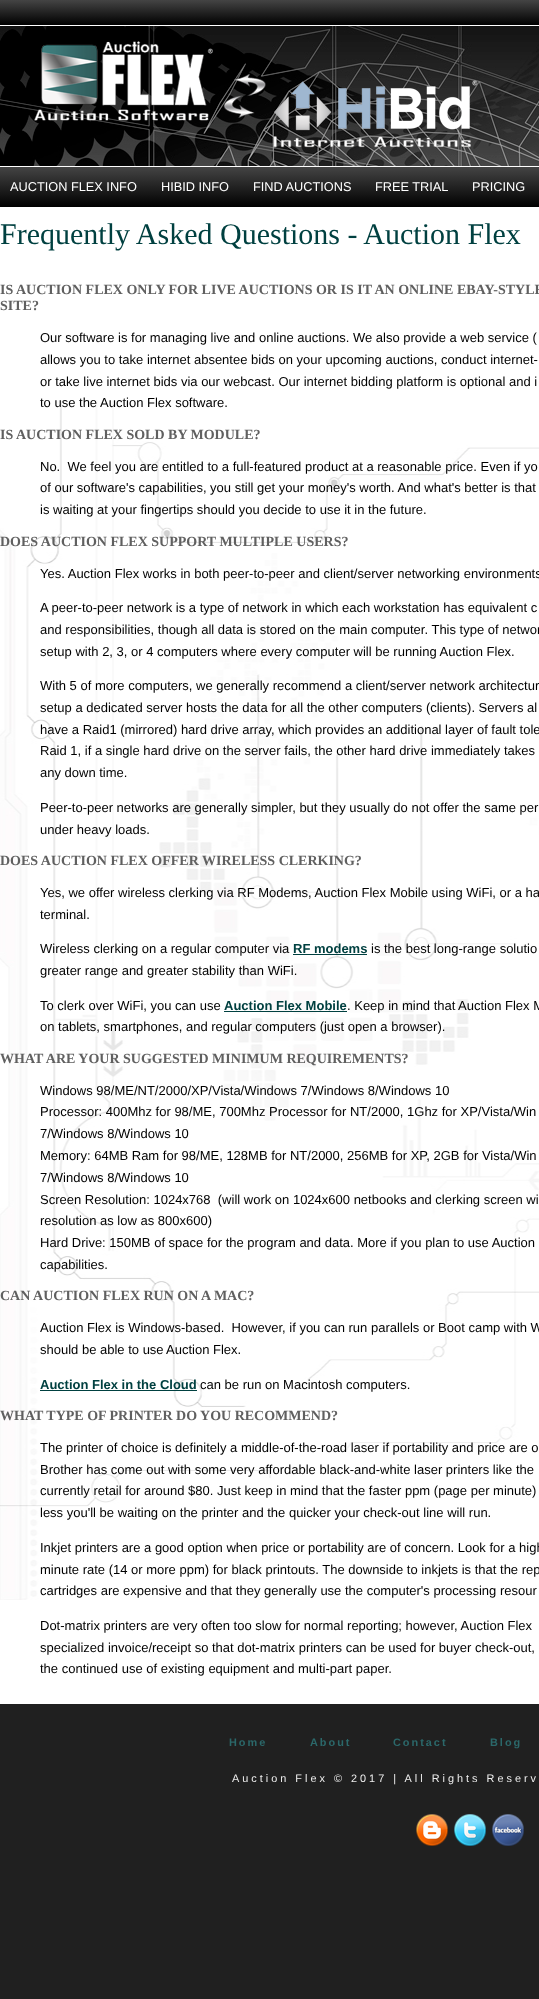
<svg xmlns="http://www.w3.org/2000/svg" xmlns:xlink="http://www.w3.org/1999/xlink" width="539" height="1999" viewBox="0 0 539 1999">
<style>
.cls-1{font:12.75px Liberation Sans;fill:#ffffff}
.cls-2{font:30px Liberation Serif;fill:#004040}
.cls-3{font:bold 14px Liberation Serif;fill:#606060}
.cls-4{font:13px Liberation Sans;fill:#000000}
.cls-5{font:bold 13px Liberation Sans;fill:#004040}
.cls-6{font:bold 10.9px Liberation Sans;letter-spacing:2px;fill:#2b686a}
.cls-7{font:10.9px Liberation Sans;letter-spacing:3px;fill:#ededed}
</style>
<defs>
<linearGradient id="g1" gradientUnits="userSpaceOnUse" x1="0" y1="0" x2="0" y2="25"><stop offset="0" stop-color="#444444"/><stop offset="1" stop-color="#000000"/></linearGradient>
<linearGradient id="g2" gradientUnits="userSpaceOnUse" x1="0" y1="167" x2="0" y2="207"><stop offset="0" stop-color="#444444"/><stop offset="1" stop-color="#000000"/></linearGradient>
</defs>
<rect width="100%" height="100%" fill="#202020"/>
<rect fill="url(#g1)" x="0" y="0" width="539" height="25"/>
<rect fill="#ffffff" x="0" y="25" width="539" height="1"/>
<image xlink:href="image0.png" x="0" y="26" width="539" height="140"/>
<image xlink:href="image1.png" x="34" y="41" width="444" height="107"/>
<rect fill="url(#g2)" x="0" y="167" width="539" height="40"/>
<rect fill="#ffffff" x="0" y="166" width="539" height="1"/>
<rect fill="#ffffff" x="0" y="207" width="539" height="1497"/>
<image xlink:href="image2.png" x="0" y="400" width="539" height="1200"/>
<rect fill="#004040" x="293" y="954" width="74" height="1"/>
<rect fill="#004040" x="224" y="1011" width="123" height="1"/>
<rect fill="#004040" x="40" y="1390" width="157" height="1"/>
<image xlink:href="image3.png" x="416" y="1814" width="32" height="32"/>
<image xlink:href="image4.png" x="454" y="1814" width="32" height="32"/>
<image xlink:href="image5.png" x="492" y="1814" width="32" height="32"/>
<text class="cls-1" x="10" y="191">AUCTION FLEX INFO</text>
<text class="cls-1" x="161" y="191">HIBID INFO</text>
<text class="cls-1" x="253" y="191">FIND AUCTIONS</text>
<text class="cls-1" x="375" y="191">FREE TRIAL</text>
<text class="cls-1" x="472" y="191">PRICING</text>
<text class="cls-2" x="0" y="244">Frequently Asked Questions - Auction Flex</text>
<text class="cls-3"><tspan x="0" y="294">IS AUCTION FLEX ONLY FOR LIVE AUCTIONS OR IS IT AN ONLINE EBAY-STYLE</tspan><tspan x="0" y="310">SITE?</tspan></text>
<text class="cls-4"><tspan x="40" y="342">Our software is for managing live and online auctions. We also provide a web service (</tspan><tspan x="40" y="364">allows you to take internet absentee bids on your upcoming auctions, conduct internet-</tspan><tspan x="40" y="386">or take live internet bids via our webcast. Our internet bidding platform is optional and i</tspan><tspan x="40" y="407">to use the</tspan></text>
<text class="cls-4" x="100" y="407">Auction Flex software.</text>
<text class="cls-3" x="0" y="439">IS AUCTION FLEX SOLD BY MODULE?</text>
<text class="cls-4" xml:space="preserve"><tspan x="40" y="471">No.  We feel you are entitled to a full-featured product at a reasonable price. Even if yo</tspan><tspan x="40" y="492">of our software's capabilities, you still get your money's worth. And what's better is that</tspan><tspan x="40" y="514">is waiting at your fingertips should you decide to use it in the future.</tspan></text>
<text class="cls-3" x="0" y="546">DOES AUCTION FLEX SUPPORT MULTIPLE USERS?</text>
<text class="cls-4" x="40" y="578">Yes. Auction Flex works in both peer-to-peer and client/server networking environments</text>
<text class="cls-4"><tspan x="40" y="612">A peer-to-peer network is a type of network in which each workstation has equivalent c</tspan><tspan x="40" y="634">and responsibilities, though all data is stored on the main computer. This type of networ</tspan><tspan x="40" y="656">setup with 2, 3, or 4 computers where every computer will be running Auction Flex.</tspan></text>
<text class="cls-4"><tspan x="40" y="690">With 5 of more computers, we generally recommend a client/server network architectur</tspan><tspan x="40" y="712">setup a dedicated server hosts the data for all the other computers (clients). Servers al</tspan><tspan x="40" y="734">have a Raid1 (mirrored) hard drive array, which provides an additional layer of fault tole</tspan><tspan x="40" y="755">Raid 1, if a single hard drive on the server fails, the other hard drive immediately takes</tspan><tspan x="40" y="777">any down time.</tspan></text>
<text class="cls-4"><tspan x="40" y="812">Peer-to-peer networks are generally simpler, but they usually do not offer the same per</tspan><tspan x="40" y="834">under heavy loads.</tspan></text>
<text class="cls-3" x="0" y="865">DOES AUCTION FLEX OFFER WIRELESS CLERKING?</text>
<text class="cls-4"><tspan x="40" y="897">Yes, we offer wireless clerking via RF Modems, Auction Flex Mobile using WiFi, or a ha</tspan><tspan x="40" y="919">terminal.</tspan></text>
<text class="cls-4" x="40" y="953">Wireless clerking on a regular computer via</text>
<text class="cls-5" x="293" y="953">RF modems</text>
<text class="cls-4" x="371" y="953">is the best long-range solutio</text>
<text class="cls-4" x="40" y="975">greater range and greater stability than WiFi.</text>
<text class="cls-4" x="40" y="1010">To clerk over WiFi, you can use</text>
<text class="cls-5" x="224" y="1010">Auction Flex Mobile</text>
<text class="cls-4" x="347" y="1010">. Keep in mind that</text>
<text class="cls-4" x="458" y="1010">Auction Flex M</text>
<text class="cls-4" x="40" y="1031">on tablets, smartphones, and regular computers (just open a browser).</text>
<text class="cls-3" x="0" y="1063">WHAT ARE YOUR SUGGESTED MINIMUM REQUIREMENTS?</text>
<text class="cls-4" xml:space="preserve"><tspan x="40" y="1095">Windows 98/ME/NT/2000/XP/Vista/Windows 7/Windows 8/Windows 10</tspan><tspan x="40" y="1116">Processor: 400Mhz for 98/ME, 700Mhz Processor for NT/2000, 1Ghz for XP/Vista/Win</tspan><tspan x="40" y="1138">7/Windows 8/Windows 10</tspan><tspan x="40" y="1160">Memory: 64MB Ram for 98/ME, 128MB for NT/2000, 256MB for XP, 2GB for Vista/Win</tspan><tspan x="40" y="1182">7/Windows 8/Windows 10</tspan><tspan x="40" y="1204">Screen Resolution: 1024x768  (will work on 1024x600 netbooks and clerking screen wi</tspan><tspan x="40" y="1225">resolution as low as 800x600)</tspan><tspan x="40" y="1247">Hard Drive: 150MB of space for the program and data. More if you plan to use Auction</tspan><tspan x="40" y="1269">capabilities.</tspan></text>
<text class="cls-3" x="0" y="1300">CAN AUCTION FLEX RUN ON A MAC?</text>
<text class="cls-4" xml:space="preserve"><tspan x="40" y="1332">Auction Flex is Windows-based.  However, if you can run parallels or Boot camp with W</tspan><tspan x="40" y="1354">should be able to use</tspan></text>
<text class="cls-4" x="166" y="1354">Auction Flex.</text>
<text class="cls-5" x="40" y="1389">Auction Flex in the Cloud</text>
<text class="cls-4" x="200" y="1389">can be run on Macintosh computers.</text>
<text class="cls-3" x="0" y="1420">WHAT TYPE OF PRINTER DO YOU RECOMMEND?</text>
<text class="cls-4"><tspan x="40" y="1452">The printer of choice is definitely a middle-of-the-road laser if portability and price are o</tspan><tspan x="40" y="1474">Brother has come out with some very affordable black-and-white laser printers like the</tspan><tspan x="40" y="1495">currently retail for around $80. Just keep in mind that the faster ppm (page per minute)</tspan><tspan x="40" y="1517">less you'll be waiting on the printer and the quicker your check-out line will run.</tspan></text>
<text class="cls-4"><tspan x="40" y="1552">Inkjet printers are a good option when price or portability are of concern. Look for a high</tspan><tspan x="40" y="1574">minute rate (14 or more ppm) for black printouts. The downside to inkjets is that the rep</tspan><tspan x="40" y="1595">cartridges are expensive and that they generally use the computer's processing resour</tspan></text>
<text class="cls-4"><tspan x="40" y="1630">Dot-matrix printers are very often too slow for normal reporting; however, Auction Flex</tspan><tspan x="40" y="1652">specialized invoice/receipt so that dot-matrix printers can be used for buyer check-out,</tspan><tspan x="40" y="1673">the continued use of existing equipment and multi-part paper.</tspan></text>
<text class="cls-6" x="229" y="1746">Home</text>
<text class="cls-6" x="310" y="1746">About</text>
<text class="cls-6" x="393" y="1746">Contact</text>
<text class="cls-6" x="490" y="1746">Blog</text>
<text class="cls-7" x="232" y="1782">Auction Flex © 2017 | All Rights Reserv</text>
</svg>
